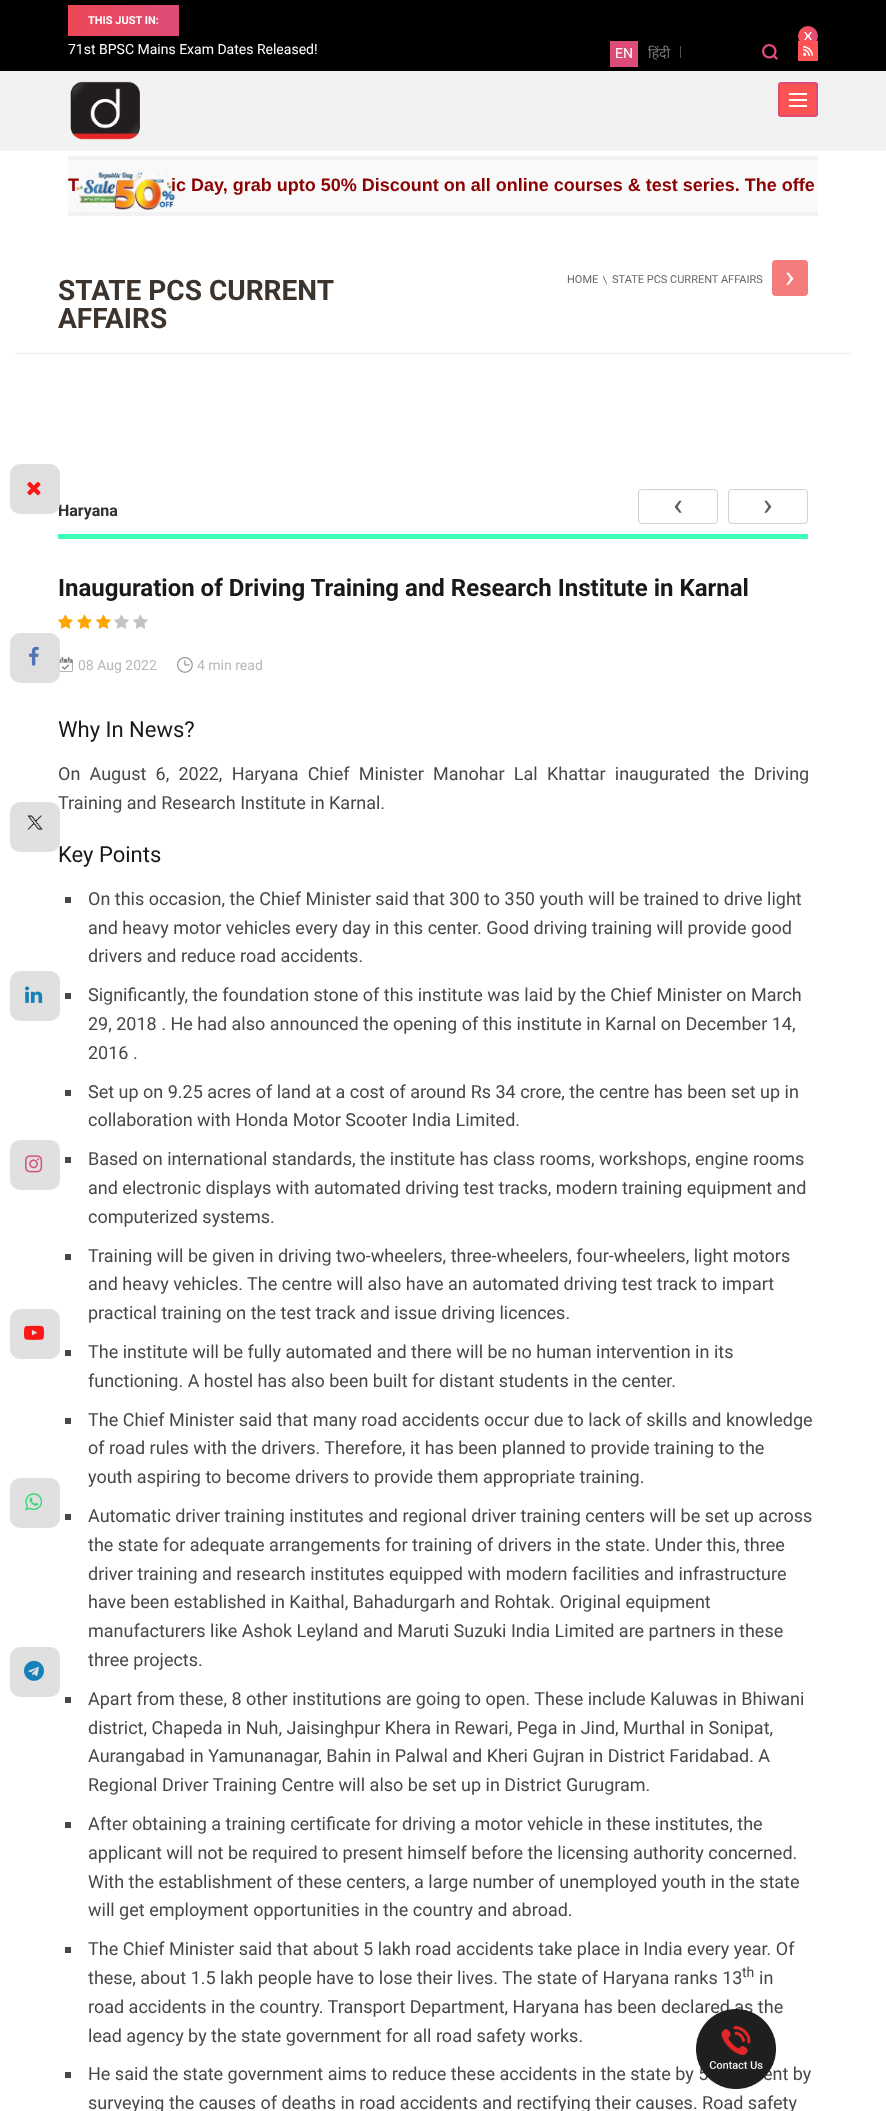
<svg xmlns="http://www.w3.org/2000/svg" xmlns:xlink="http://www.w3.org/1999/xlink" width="886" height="2111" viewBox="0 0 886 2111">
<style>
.cls-1{font:bold 11px Roboto;fill:#ffffff}
.cls-2{font:14px Roboto;fill:#ffffff}
.cls-3{font:14px Noto Sans;fill:#777777}
.cls-4{font:bold 18px Liberation Sans;fill:#8b0000}
.cls-5{font:bold 28px Roboto;fill:#3b332c}
.cls-6{font:11px Roboto;fill:#666666}
.cls-7{font:bold 16px Roboto;fill:#303030}
.cls-8{font:bold 24px Roboto;fill:#191919}
.cls-9{font:14px Roboto;fill:#b8b8b8}
.cls-10{font:22px Roboto;fill:#191919}
.cls-11{font:18px Roboto;fill:#474747}
.cls-12{font:14px Roboto;fill:#474747}
</style>
<defs>
<linearGradient id="g1" gradientUnits="userSpaceOnUse" x1="68" y1="21" x2="179" y2="20"><stop offset="0" stop-color="#ed4757"/><stop offset="1" stop-color="#dd4c76"/></linearGradient>
<linearGradient id="g2" gradientUnits="userSpaceOnUse" x1="798" y1="36" x2="818" y2="36"><stop offset="0" stop-color="#ff5353"/><stop offset="1" stop-color="#dd4c76"/></linearGradient>
</defs>
<rect width="100%" height="100%" fill="#ffffff"/>
<rect fill="#000000" x="0" y="0" width="886" height="71"/>
<rect fill="url(#g1)" x="68" y="5" width="111" height="31"/>
<circle fill="url(#g2)" cx="808" cy="36" r="10"/>
<image xlink:href="image0.png" x="804" y="32" width="8" height="8"/>
<rect fill="#f2f2f2" x="0" y="71" width="886" height="80"/>
<rect fill="#dd4c76" x="610" y="41" width="28" height="26"/>
<rect fill="#535353" x="680" y="46" width="1" height="12"/>
<image xlink:href="image1.png" x="762" y="44" width="16" height="16"/>
<rect fill="#ff5353" x="798" y="41" width="20" height="20"/>
<image xlink:href="image2.png" x="803" y="46" width="10" height="10"/>
<rect fill="#ff5353" stroke="#dd4c76" stroke-width="2" x="779" y="83" width="38" height="33" rx="2"/>
<rect fill="#ffffff" x="789" y="99" width="18" height="2"/>
<rect fill="#ffffff" x="789" y="93" width="18" height="2"/>
<rect fill="#ffffff" x="789" y="105" width="18" height="2"/>
<image xlink:href="image3.png" x="70" y="81" width="70" height="59"/>
<rect fill="#f9f9f9" x="68" y="160" width="750" height="52"/>
<rect fill="#f2f2f2" x="68" y="156" width="750" height="4"/>
<rect fill="#f2f2f2" x="68" y="212" width="750" height="4"/>
<image xlink:href="image18.png" x="58" y="657" width="15" height="15"/>
<rect fill="#dcdcdc" fill-opacity="0.9" x="10" y="633" width="50" height="50" rx="10"/>
<image xlink:href="image6.png" x="29" y="646" width="10" height="20"/>
<rect fill="#e0e0e0" x="10" y="971" width="50" height="50" rx="10"/>
<image xlink:href="image8.png" x="25" y="986" width="18" height="17"/>
<rect fill="#e0e0e0" x="10" y="1140" width="50" height="50" rx="10"/>
<image xlink:href="image9.png" x="25" y="1155" width="18" height="18"/>
<rect fill="#e0e0e0" x="10" y="1309" width="50" height="50" rx="10"/>
<image xlink:href="image10.png" x="24" y="1325" width="20" height="15"/>
<rect fill="#e0e0e0" x="10" y="1478" width="50" height="50" rx="10"/>
<image xlink:href="image11.png" x="25" y="1493" width="18" height="18"/>
<rect fill="#e0e0e0" x="10" y="1647" width="50" height="50" rx="10"/>
<image xlink:href="image12.png" x="24" y="1660" width="20" height="21"/>
<rect fill="#ececec" x="15" y="353" width="836" height="1"/>
<rect fill="#f47c7c" x="772" y="260" width="36" height="36" rx="4"/>
<image xlink:href="image13.png" x="786" y="272" width="8" height="13"/>
<rect fill="#3dffb8" x="58" y="534" width="750" height="5"/>
<image xlink:href="image14.png" x="674" y="500" width="8" height="13"/>
<rect fill="none" stroke="#d1d1d1" x="638.5" y="489.5" width="79" height="34" rx="3.5"/>
<image xlink:href="image15.png" x="764" y="500" width="8" height="13"/>
<rect fill="none" stroke="#d1d1d1" x="728.5" y="489.5" width="79" height="34" rx="3.5"/>
<image xlink:href="image16.png" x="58" y="614" width="15" height="15"/>
<image xlink:href="image16.png" x="77" y="614" width="15" height="15"/>
<image xlink:href="image16.png" x="96" y="614" width="15" height="15"/>
<image xlink:href="image17.png" x="114" y="614" width="15" height="15"/>
<image xlink:href="image17.png" x="133" y="614" width="15" height="15"/>
<image xlink:href="image19.png" x="177" y="657" width="16" height="16"/>
<rect fill="#474747" x="65" y="897" width="6" height="6"/>
<rect fill="#474747" x="65" y="993" width="6" height="6"/>
<rect fill="#474747" x="65" y="1090" width="6" height="6"/>
<rect fill="#474747" x="65" y="1157" width="6" height="6"/>
<rect fill="#474747" x="65" y="1254" width="6" height="6"/>
<rect fill="#474747" x="65" y="1350" width="6" height="6"/>
<rect fill="#474747" x="65" y="1418" width="6" height="6"/>
<rect fill="#474747" x="65" y="1514" width="6" height="6"/>
<rect fill="#474747" x="65" y="1697" width="6" height="6"/>
<rect fill="#474747" x="65" y="1822" width="6" height="6"/>
<rect fill="#474747" x="65" y="1947" width="6" height="6"/>
<rect fill="#474747" x="65" y="2072" width="6" height="6"/>
<text class="cls-1" x="88" y="24">THIS JUST IN:</text>
<text class="cls-2" x="68" y="54">71st BPSC Mains Exam Dates Released!</text>
<text class="cls-2" x="615" y="58">EN</text>
<text class="cls-3" x="648" y="58">हिंदी</text>
<text class="cls-4" x="68" y="191">T</text>
<text class="cls-4" x="171" y="191">ic Day, grab upto 50% Discount on all online courses &amp; test series. The offe</text>
<image xlink:href="image4.png" x="70" y="172" width="116" height="42"/>
<text class="cls-5"><tspan x="58" y="300">STATE PCS CURRENT</tspan><tspan x="58" y="328">AFFAIRS</tspan></text>
<text class="cls-6" x="567" y="283">HOME</text>
<text class="cls-6" x="604" y="276" transform="rotate(135 604 276)">/</text>
<text class="cls-6" x="612" y="283">STATE PCS CURRENT AFFAIRS</text>
<text class="cls-7" x="58" y="516">Haryana</text>
<rect fill="#dcdcdc" fill-opacity="0.9" x="10" y="464" width="50" height="50" rx="10"/>
<image xlink:href="image5.png" x="27" y="482" width="14" height="14"/>
<text class="cls-8" x="58" y="596">Inauguration of Driving Training and Research Institute in Karnal</text>
<text class="cls-9" x="78" y="670">08 Aug 2022</text>
<text class="cls-9" x="197" y="670">4 min read</text>
<text class="cls-10" x="58" y="737">Why In News?</text>
<text class="cls-11"><tspan x="58" y="780" word-spacing="4.75">On August 6, 2022, Haryana Chief Minister Manohar Lal Khattar inaugurated the Driving</tspan><tspan x="58" y="809">Training and Research Institute in Karnal.</tspan></text>
<text class="cls-10" x="58" y="862">Key Points</text>
<rect fill="#e0e0e0" x="10" y="802" width="50" height="50" rx="10"/>
<image xlink:href="image7.png" x="27" y="815" width="16" height="15"/>
<text class="cls-11"><tspan x="88" y="905">On this occasion, the Chief Minister said that 300 to 350 youth will be trained to drive light</tspan><tspan x="88" y="934">and heavy motor vehicles every day in this center. Good driving training will provide good</tspan><tspan x="88" y="962">drivers and reduce road accidents.</tspan></text>
<text class="cls-11"><tspan x="88" y="1001">Significantly, the foundation stone of this institute was laid by the Chief Minister on March</tspan><tspan x="88" y="1030">29, 2018 . He had also announced the opening of this institute in Karnal on December 14,</tspan><tspan x="88" y="1059">2016 .</tspan></text>
<text class="cls-11"><tspan x="88" y="1098">Set up on 9.25 acres of land at a cost of around Rs 34 crore, the centre has been set up in</tspan><tspan x="88" y="1126">collaboration with Honda Motor Scooter India Limited.</tspan></text>
<text class="cls-11"><tspan x="88" y="1165">Based on international standards, the institute has class rooms, workshops, engine rooms</tspan><tspan x="88" y="1194">and electronic displays with automated driving test tracks, modern training equipment and</tspan><tspan x="88" y="1223">computerized systems.</tspan></text>
<text class="cls-11"><tspan x="88" y="1262">Training will be given in driving two-wheelers, three-wheelers, four-wheelers, light motors</tspan><tspan x="88" y="1290">and heavy vehicles. The centre will also have an automated driving test track to impart</tspan><tspan x="88" y="1319">practical training on the test track and issue driving licences.</tspan></text>
<text class="cls-11"><tspan x="88" y="1358">The institute will be fully automated and there will be no human intervention in its</tspan><tspan x="88" y="1387">functioning. A hostel has also been built for distant students in the center.</tspan></text>
<text class="cls-11"><tspan x="88" y="1426">The Chief Minister said that many road accidents occur due to lack of skills and knowledge</tspan><tspan x="88" y="1454">of road rules with the drivers. Therefore, it has been planned to provide training to the</tspan><tspan x="88" y="1483">youth aspiring to become drivers to provide them appropriate training.</tspan></text>
<text class="cls-11"><tspan x="88" y="1522">Automatic driver training institutes and regional driver training centers will be set up across</tspan><tspan x="88" y="1551">the state for adequate arrangements for training of drivers in the state. Under this, three</tspan><tspan x="88" y="1580">driver training and research institutes equipped with modern facilities and infrastructure</tspan><tspan x="88" y="1608">have been established in Kaithal, Bahadurgarh and Rohtak. Original equipment</tspan><tspan x="88" y="1637">manufacturers like Ashok Leyland and Maruti Suzuki India Limited are partners in these</tspan><tspan x="88" y="1666">three projects.</tspan></text>
<text class="cls-11"><tspan x="88" y="1705">Apart from these, 8 other institutions are going to open. These include Kaluwas in Bhiwani</tspan><tspan x="88" y="1734">district, Chapeda in Nuh, Jaisinghpur Khera in Rewari, Pega in Jind, Murthal in Sonipat,</tspan><tspan x="88" y="1762">Aurangabad in Yamunanagar, Bahin in Palwal and Kheri Gujran in District Faridabad. A</tspan><tspan x="88" y="1791">Regional Driver Training Centre will also be set up in District Gurugram.</tspan></text>
<text class="cls-11"><tspan x="88" y="1830">After obtaining a training certificate for driving a motor vehicle in these institutes, the</tspan><tspan x="88" y="1859">applicant will not be required to present himself before the licensing authority concerned.</tspan><tspan x="88" y="1888">With the establishment of these centers, a large number of unemployed youth in the state</tspan><tspan x="88" y="1916">will get employment opportunities in the country and abroad.</tspan></text>
<text class="cls-11"><tspan x="88" y="1955">The Chief Minister said that about 5 lakh road accidents take place in India every year. Of</tspan><tspan x="88" y="1984">these, about 1.5 lakh people have to lose their lives. The state of Haryana ranks 13</tspan></text>
<text class="cls-12" x="742" y="1977">th</text>
<text class="cls-11" x="759" y="1984">in</text>
<text class="cls-11"><tspan x="88" y="2013">road accidents in the country. Transport Department, Haryana has been declared as the</tspan><tspan x="88" y="2042">lead agency by the state government for all road safety works.</tspan></text>
<text class="cls-11" x="88" y="2080">He said the state government aims to reduce these accidents in the state by 5</text>
<text class="cls-11" x="763" y="2080">ent by</text>
<text class="cls-11" x="88" y="2109">surveying the causes of deaths in road accidents and rectifying their causes. Road safety</text>
<image xlink:href="image20.png" x="696" y="2009" width="80" height="80"/>
</svg>
